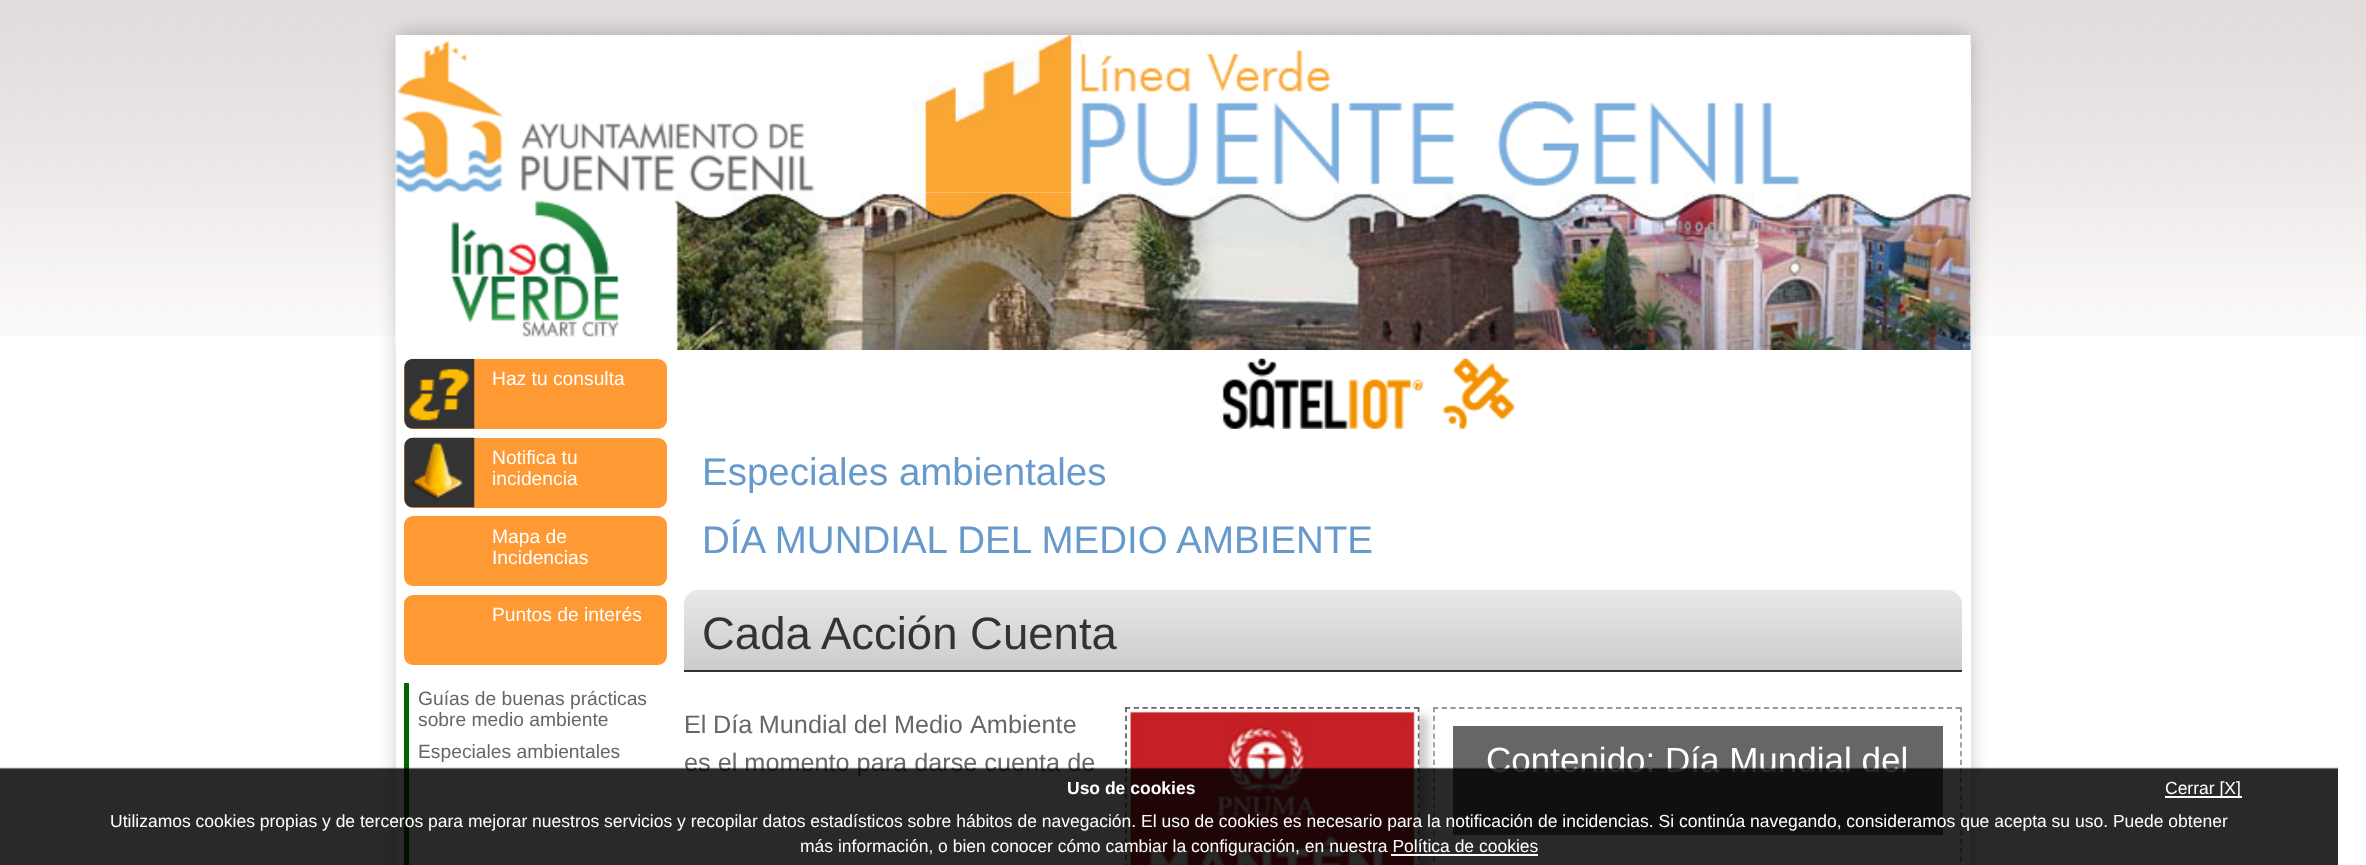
<svg xmlns="http://www.w3.org/2000/svg" xmlns:xlink="http://www.w3.org/1999/xlink" width="2366" height="865" viewBox="0 0 2366 865">
<style>
.cls-1{font:19.25px Liberation Sans;fill:#ffffff}
.cls-2{font:19.25px Liberation Sans;fill:#666666}
.cls-3{font:38.5px Liberation Sans;fill:#6699cc}
.cls-4{font:45.5px Liberation Sans;fill:#333333}
.cls-5{font:25.25px Liberation Sans;fill:#666666}
.cls-6{font:35px Liberation Sans;fill:#ffffff}
.cls-7{font:bold 17.5px Liberation Sans;fill:#ffffff}
.cls-8{font:17.5px Liberation Sans;fill:#ffffff}
</style>
<defs>
<linearGradient id="g1" gradientUnits="userSpaceOnUse" x1="1323" y1="590" x2="1323" y2="670"><stop offset="0" stop-color="#e8e8e8"/><stop offset="1" stop-color="#cccccc"/></linearGradient>
<clipPath id="clip1"><rect x="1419" y="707" width="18" height="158"/></clipPath>
</defs>
<rect width="100%" height="100%" fill="#ffffff"/>
<image xlink:href="image0.png" x="0" y="0" width="2366" height="336"/>
<rect fill="#000000" fill-opacity="0.2" filter="blur(9px)" x="396" y="32" width="1575" height="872" rx="12"/>
<rect fill="#ffffff" x="396" y="35" width="1575" height="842" rx="12"/>
<image xlink:href="image1.png" x="395" y="35" width="1576" height="158"/>
<image xlink:href="image2.png" x="395" y="192" width="224" height="158"/>
<image xlink:href="image3.png" x="675" y="192" width="1296" height="158"/>
<image xlink:href="image4.png" x="1222" y="358" width="293" height="71"/>
<rect fill="#ff9933" x="404" y="359" width="263" height="70" rx="9"/>
<image xlink:href="image5.png" x="404" y="358" width="71" height="71"/>
<rect fill="#ff9933" x="404" y="438" width="263" height="70" rx="9"/>
<image xlink:href="image6.png" x="404" y="437" width="71" height="71"/>
<rect fill="#ff9933" x="404" y="516" width="263" height="70" rx="9"/>
<rect fill="#ff9933" x="404" y="595" width="263" height="70" rx="9"/>
<rect fill="#006600" x="404" y="683" width="5" height="182"/>
<path fill="url(#g1)" d="M698 590H1948C1955.5 590 1962 596.5 1962 604V670H684V604C684 596.5 690.5 590 698 590Z"/>
<rect fill="#333333" x="684" y="670" width="1278" height="2"/>
<path fill="none" stroke="#999999" stroke-width="1.8" stroke-dasharray="5.25 3.46" d="M1433 708H1962"/>
<path fill="none" stroke="#999999" stroke-width="1.8" stroke-dasharray="5.25 3.55" d="M1434 707V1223"/>
<g clip-path="url(#clip1)">
<rect fill="#cccccc" filter="blur(4.5px)" x="1134" y="716" width="294" height="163"/>
</g>
<path fill="none" stroke="#666666" stroke-width="1.8" stroke-dasharray="5.25 3.5" d="M1125 708H1419"/>
<path fill="none" stroke="#666666" stroke-width="1.8" stroke-dasharray="5.25 3.46" d="M1418.5 707V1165.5"/>
<path fill="none" stroke="#666666" stroke-width="1.8" stroke-dasharray="5.25 3.46" d="M1126 707V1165.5"/>
<image xlink:href="image7.png" x="1127" y="708" width="291" height="157"/>
<path fill="none" stroke="#999999" stroke-width="1.8" stroke-dasharray="5.25 3.55" d="M1961 707V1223"/>
<rect fill="#666666" x="1453" y="726" width="490" height="109"/>
<text class="cls-1" x="492" y="385">Haz tu consulta</text>
<text class="cls-1"><tspan x="492" y="464">Notifica tu</tspan><tspan x="492" y="485">incidencia</tspan></text>
<text class="cls-1"><tspan x="492" y="543">Mapa de</tspan><tspan x="492" y="564">Incidencias</tspan></text>
<text class="cls-1" x="492" y="621">Puntos de interés</text>
<text class="cls-2"><tspan x="418" y="705">Guías de buenas prácticas</tspan><tspan x="418" y="726">sobre medio ambiente</tspan><tspan x="418" y="758">Especiales ambientales</tspan></text>
<text class="cls-3"><tspan x="702" y="485">Especiales ambientales</tspan><tspan x="702" y="553">DÍA MUNDIAL DEL MEDIO AMBIENTE</tspan></text>
<text class="cls-4" x="702" y="649">Cada Acción Cuenta</text>
<text class="cls-5" x="684" y="733" word-spacing="-0.5">El Día Mundial del Medio</text>
<text class="cls-5" x="970" y="733">Ambiente</text>
<text class="cls-5" x="684" y="771">es el momento para darse cuenta de</text>
<text class="cls-6" x="1486" y="772">Contenido: Día Mundial del</text>
<image xlink:href="image8.png" x="0" y="767" width="2338" height="98"/>
<text class="cls-7" x="1067" y="794">Uso de cookies</text>
<rect fill="#fcfcfc" x="2165" y="796" width="77" height="2"/>
<text class="cls-8" x="2165" y="794">Cerrar [X]</text>
<text class="cls-8" x="110" y="827">Utilizamos cookies propias y de terceros para mejorar nuestros servicios y recopilar datos estadísticos sobre hábitos de navegación. El uso de cookies es necesario para la notificación de incidencias. Si continúa navegando, consideramos que acepta su uso. Puede obtener</text>
<text class="cls-8" x="800" y="852">más información, o bien conocer cómo cambiar la configuración, en nuestra Política de cookies</text>
<rect fill="#ffffff" fill-opacity="0.99" x="1391" y="854" width="147" height="2"/>
</svg>
